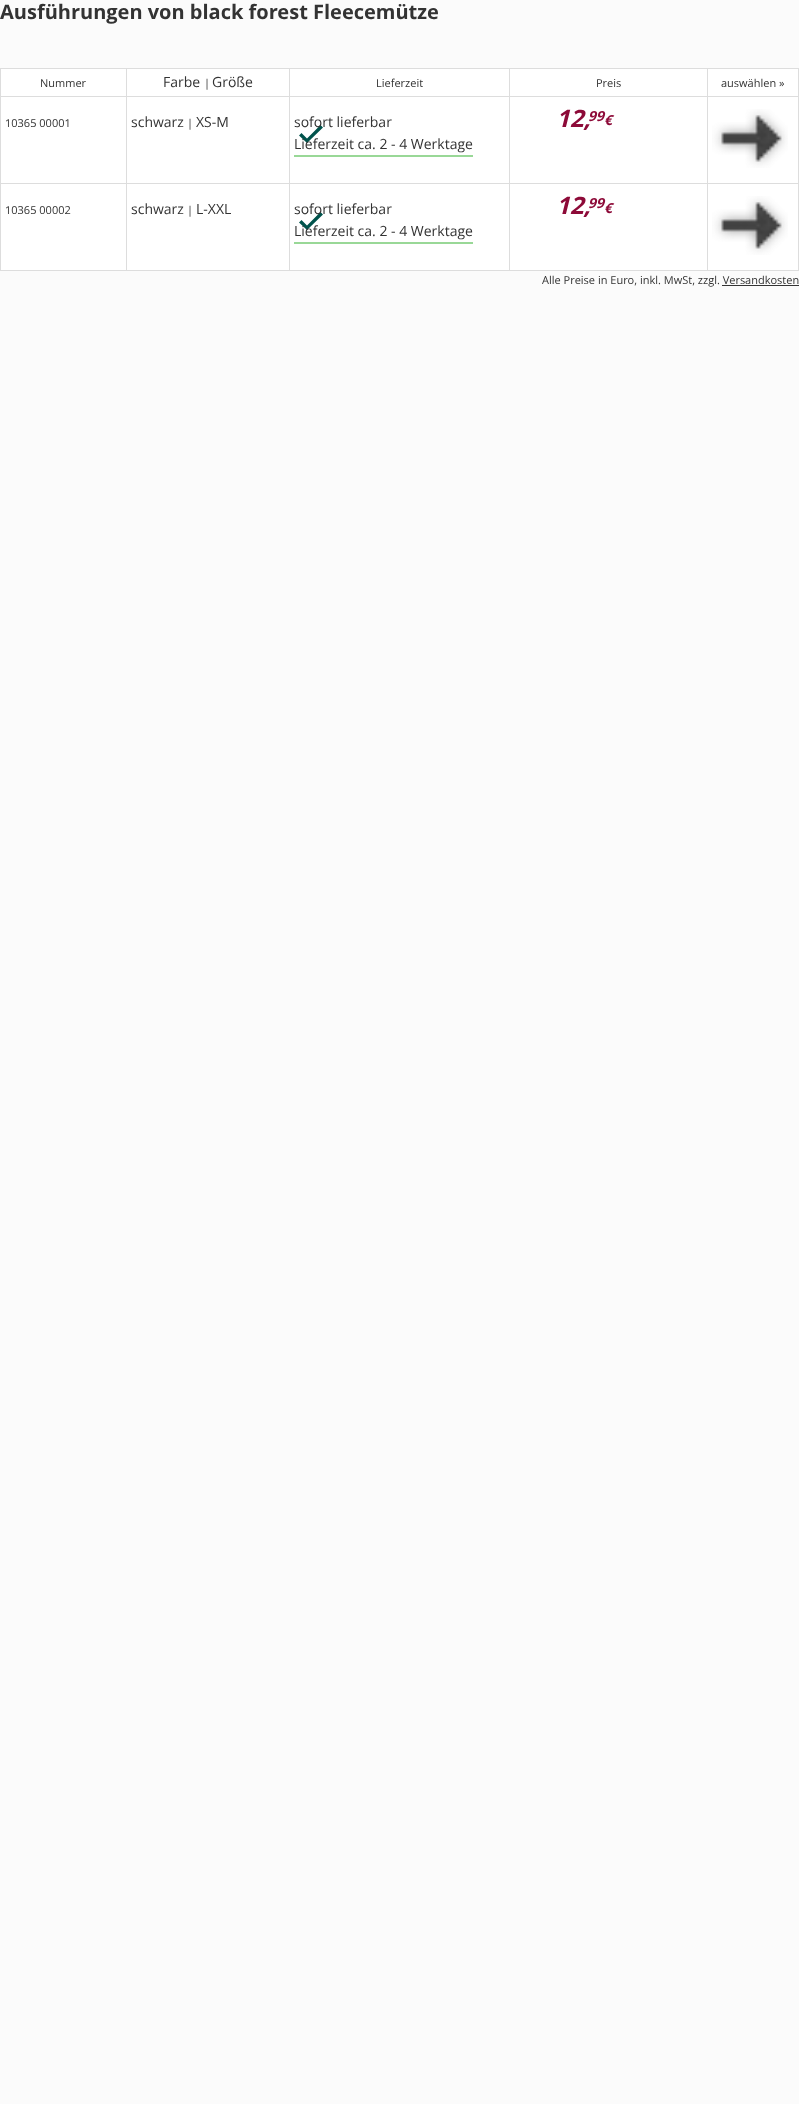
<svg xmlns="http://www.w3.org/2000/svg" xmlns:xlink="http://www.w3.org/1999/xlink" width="799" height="2104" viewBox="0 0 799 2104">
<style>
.cls-1{font:bold 20px Open Sans;fill:#333333}
.cls-2{font:11px Open Sans;fill:#333333}
.cls-3{font:14px Open Sans;fill:#333333}
.cls-4{font:italic bold 24px Open Sans;fill:#8d0a38}
.cls-5{font:italic bold 14px Open Sans;fill:#8d0a38}
</style>
<rect width="100%" height="100%" fill="#fbfbfb"/>
<rect fill="#ffffff" x="1" y="69" width="125" height="27"/>
<rect fill="#dddddd" x="707" y="68" width="92" height="1"/>
<rect fill="#dddddd" x="707" y="96" width="92" height="1"/>
<rect fill="#dddddd" x="707" y="183" width="92" height="1"/>
<rect fill="#dddddd" x="798" y="183" width="1" height="88"/>
<rect fill="#dddddd" x="707" y="270" width="92" height="1"/>
<rect fill="#dddddd" x="707" y="183" width="1" height="88"/>
<rect fill="#dddddd" x="509" y="183" width="199" height="1"/>
<rect fill="#dddddd" x="707" y="96" width="1" height="88"/>
<rect fill="#dddddd" x="509" y="96" width="199" height="1"/>
<rect fill="#dddddd" x="707" y="68" width="1" height="29"/>
<rect fill="#dddddd" x="509" y="68" width="199" height="1"/>
<rect fill="#dddddd" x="509" y="270" width="199" height="1"/>
<rect fill="#dddddd" x="509" y="183" width="1" height="88"/>
<rect fill="#dddddd" x="289" y="183" width="221" height="1"/>
<rect fill="#dddddd" x="509" y="96" width="1" height="88"/>
<rect fill="#dddddd" x="289" y="96" width="221" height="1"/>
<rect fill="#dddddd" x="509" y="68" width="1" height="29"/>
<rect fill="#dddddd" x="289" y="68" width="221" height="1"/>
<rect fill="#dddddd" x="289" y="270" width="221" height="1"/>
<rect fill="#dddddd" x="289" y="183" width="1" height="88"/>
<rect fill="#dddddd" x="126" y="183" width="164" height="1"/>
<rect fill="#dddddd" x="289" y="96" width="1" height="88"/>
<rect fill="#dddddd" x="126" y="96" width="164" height="1"/>
<rect fill="#dddddd" x="289" y="68" width="1" height="29"/>
<rect fill="#dddddd" x="126" y="68" width="164" height="1"/>
<rect fill="#dddddd" x="126" y="270" width="164" height="1"/>
<rect fill="#dddddd" x="126" y="183" width="1" height="88"/>
<rect fill="#dddddd" x="0" y="183" width="127" height="1"/>
<rect fill="#dddddd" x="126" y="96" width="1" height="88"/>
<rect fill="#dddddd" x="0" y="96" width="127" height="1"/>
<rect fill="#dddddd" x="126" y="68" width="1" height="29"/>
<rect fill="#dddddd" x="0" y="68" width="127" height="1"/>
<rect fill="#dddddd" x="0" y="270" width="127" height="1"/>
<rect fill="#dddddd" x="0" y="183" width="1" height="88"/>
<rect fill="#dddddd" x="0" y="96" width="1" height="88"/>
<rect fill="#dddddd" x="0" y="68" width="1" height="29"/>
<rect fill="#ffffff" x="127" y="69" width="162" height="27"/>
<rect fill="#ffffff" x="290" y="69" width="219" height="27"/>
<rect fill="#ffffff" x="510" y="69" width="197" height="27"/>
<rect fill="#ffffff" x="708" y="69" width="90" height="27"/>
<rect fill="#dddddd" x="798" y="96" width="1" height="88"/>
<rect fill="#dddddd" x="798" y="68" width="1" height="29"/>
<rect fill="#ffffff" x="1" y="97" width="125" height="86"/>
<rect fill="#ffffff" x="127" y="97" width="162" height="86"/>
<rect fill="#ffffff" x="290" y="97" width="219" height="86"/>
<path fill="#00534c" d="M307 143L299 135.5L301.5 133L307 138.5L320.5 125L323 127.5Z"/>
<rect fill="#99d897" x="294" y="155" width="179" height="2"/>
<rect fill="#ffffff" x="510" y="97" width="197" height="86"/>
<rect fill="#ffffff" x="708" y="97" width="90" height="86"/>
<image xlink:href="image0.png" x="712" y="109" width="76" height="59"/>
<rect fill="#ffffff" x="1" y="184" width="125" height="86"/>
<rect fill="#ffffff" x="127" y="184" width="162" height="86"/>
<rect fill="#ffffff" x="290" y="184" width="219" height="86"/>
<path fill="#00534c" d="M307 230L299 222.5L301.5 220L307 225.5L320.5 212L323 214.5Z"/>
<rect fill="#99d897" x="294" y="242" width="179" height="2"/>
<rect fill="#ffffff" x="510" y="184" width="197" height="86"/>
<rect fill="#ffffff" x="708" y="184" width="90" height="86"/>
<image xlink:href="image1.png" x="712" y="196" width="76" height="59"/>
<rect fill="#333333" x="722" y="285" width="77" height="1"/>
<text class="cls-1" x="0" y="19">Ausführungen von black forest Fleecemütze</text>
<text class="cls-2" x="40" y="87">Nummer</text>
<text class="cls-3" x="163" y="87">Farbe</text>
<text class="cls-2" x="204" y="87">|</text>
<text class="cls-3" x="212" y="87">Größe</text>
<text class="cls-2" x="376" y="87">Lieferzeit</text>
<text class="cls-2" x="596" y="87">Preis</text>
<text class="cls-2" x="721" y="87">auswählen »</text>
<text class="cls-2" x="5" y="127">10365 00001</text>
<text class="cls-3" x="131" y="127">schwarz</text>
<text class="cls-2" x="187" y="127">|</text>
<text class="cls-3" x="196" y="127">XS-M</text>
<text class="cls-3"><tspan x="294" y="127">sofort lieferbar</tspan><tspan x="294" y="149">Lieferzeit ca. 2 - 4 Werktage</tspan></text>
<text class="cls-4" x="556" y="127">12,</text>
<text class="cls-5" x="588" y="121">99</text>
<text class="cls-5" x="604" y="125">€</text>
<text class="cls-2" x="5" y="214">10365 00002</text>
<text class="cls-3" x="131" y="214">schwarz</text>
<text class="cls-2" x="187" y="214">|</text>
<text class="cls-3" x="196" y="214">L-XXL</text>
<text class="cls-3"><tspan x="294" y="214">sofort lieferbar</tspan><tspan x="294" y="236">Lieferzeit ca. 2 - 4 Werktage</tspan></text>
<text class="cls-4" x="556" y="214">12,</text>
<text class="cls-5" x="588" y="208">99</text>
<text class="cls-5" x="604" y="213">€</text>
<text class="cls-2" x="542" y="284">Alle Preise in Euro, inkl. MwSt, zzgl. Versandkosten</text>
</svg>
